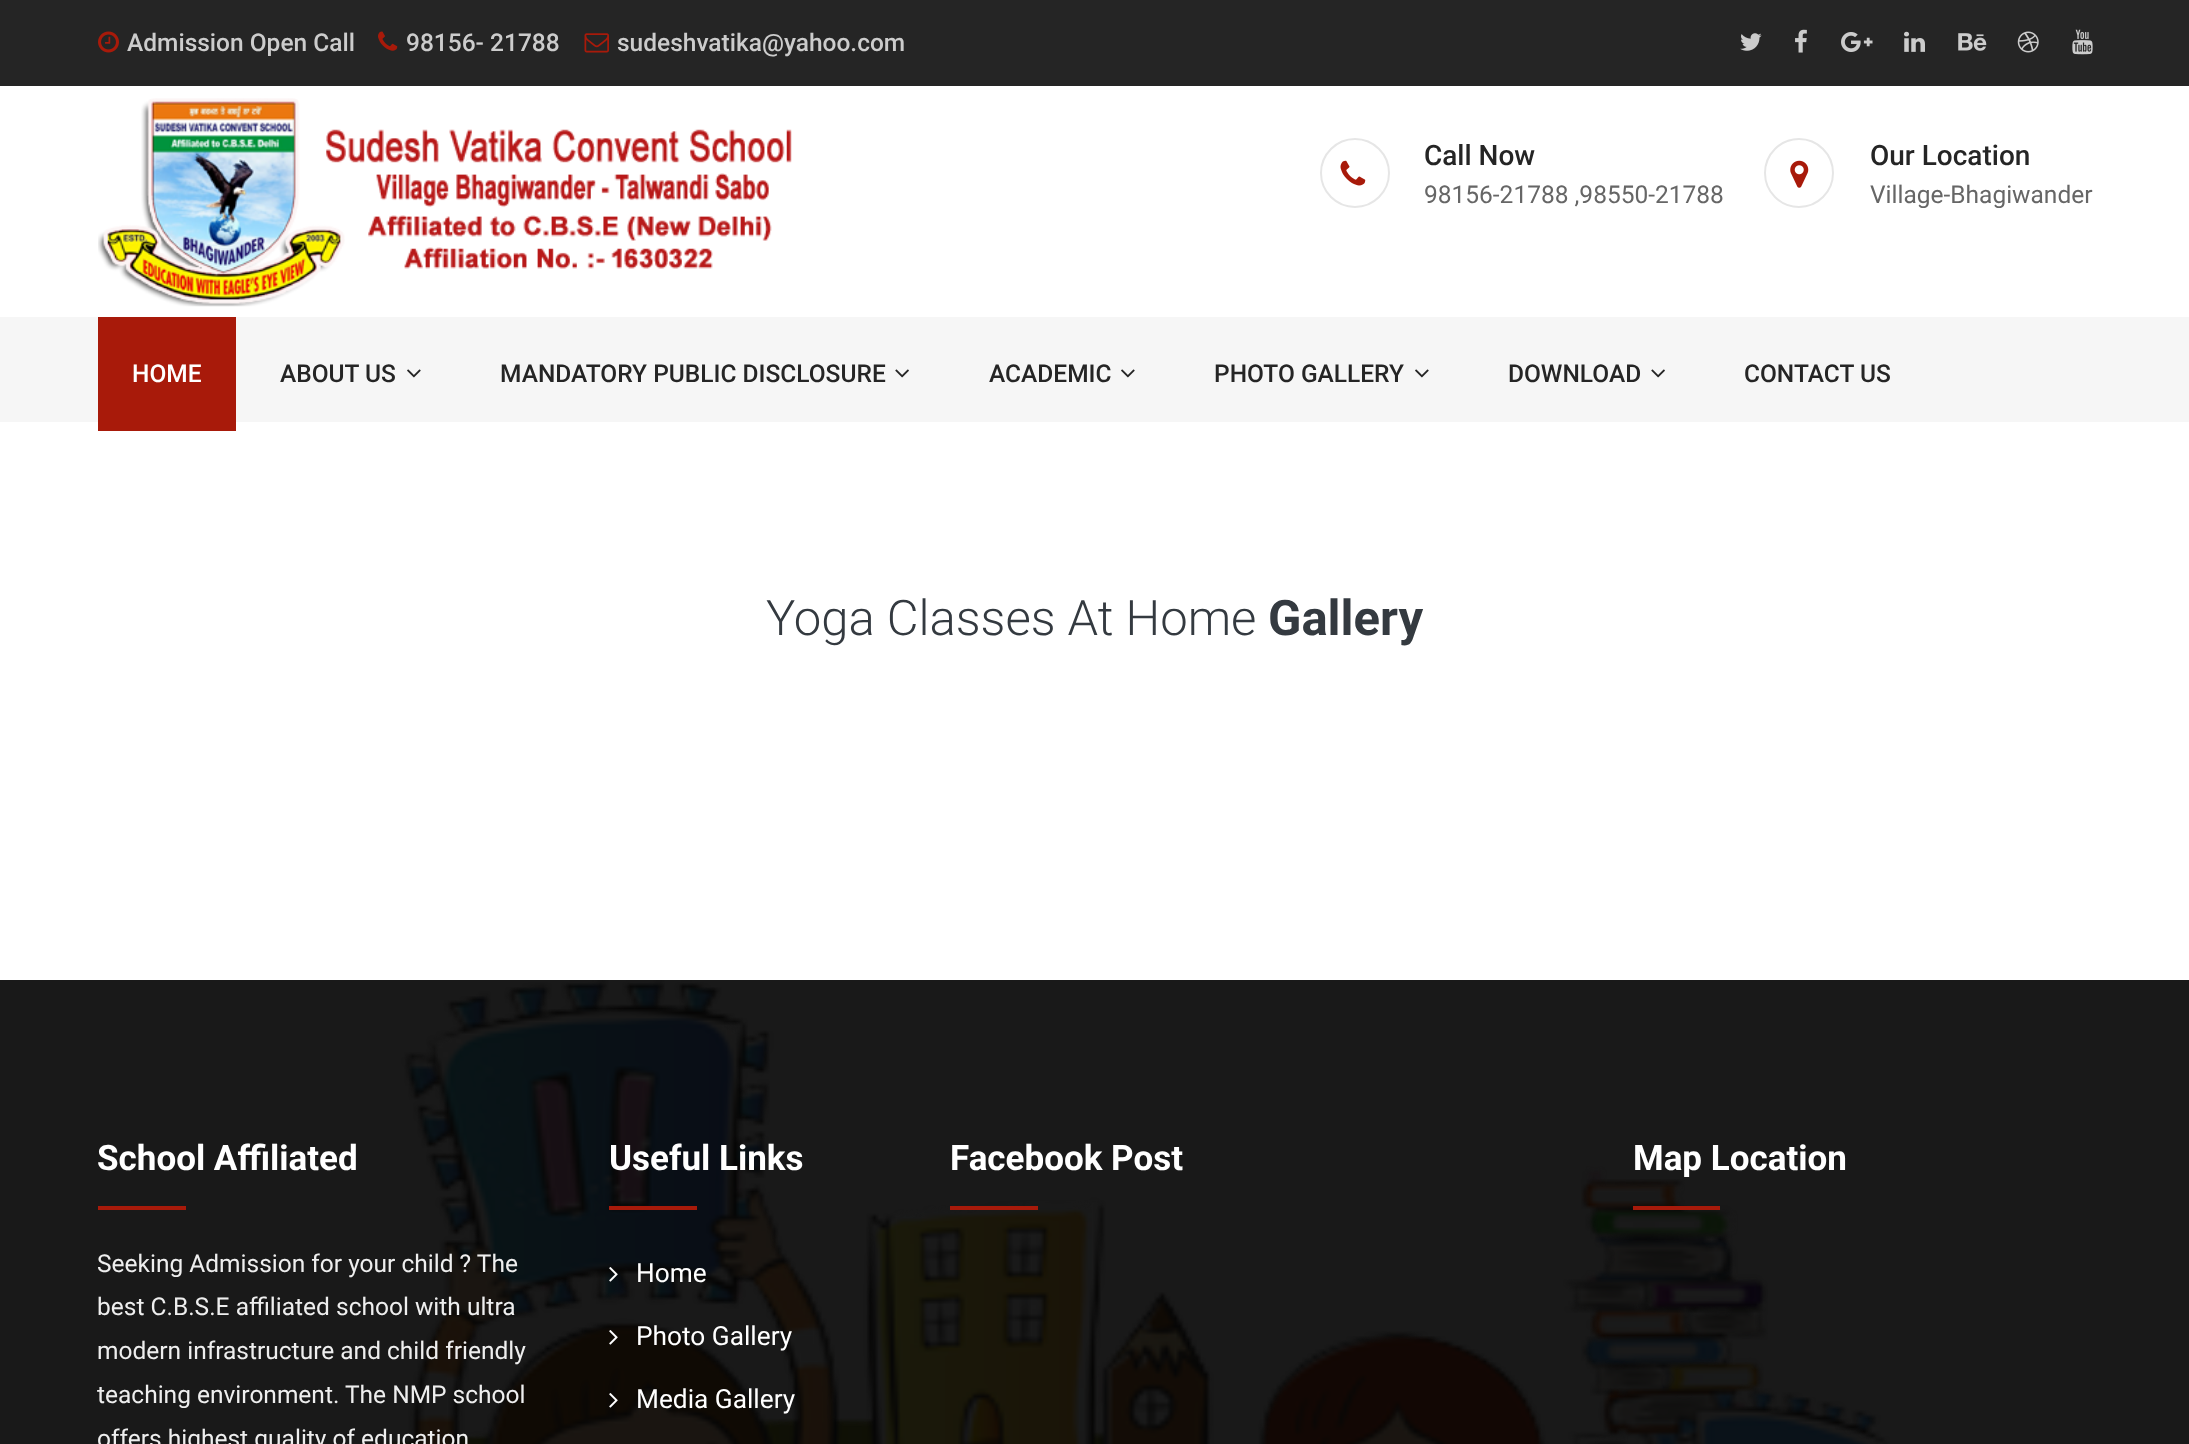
<svg xmlns="http://www.w3.org/2000/svg" xmlns:xlink="http://www.w3.org/1999/xlink" width="2189" height="1444" viewBox="0 0 2189 1444">
<style>
.cls-1{font:500 24.5px Roboto;fill:#cccccc}
.cls-2{font:500 28px Roboto;fill:#252525}
.cls-3{font:24.5px Roboto;fill:#666666}
.cls-4{font:500 24.5px Roboto;fill:#ffffff}
.cls-5{font:500 24.5px Roboto;fill:#252525}
.cls-6{font:300 49px Roboto;fill:#343a40}
.cls-7{font:bold 49px Roboto;fill:#343a40}
.cls-8{font:bold 35px Roboto;fill:#ffffff}
.cls-9{font:24.5px Roboto;fill:#eeeeee}
.cls-10{font:26.25px Roboto;fill:#ffffff}
</style>
<rect width="100%" height="100%" fill="#ffffff"/>
<rect fill="#191919" x="0" y="980" width="2189" height="464"/>
<rect fill="#252525" x="0" y="0" width="2189" height="86"/>
<image xlink:href="image0.png" x="98" y="31" width="21" height="22"/>
<image xlink:href="image1.png" x="378" y="31" width="20" height="20"/>
<image xlink:href="image2.png" x="584" y="33" width="25" height="20"/>
<image xlink:href="image3.png" x="1740" y="33" width="22" height="18"/>
<image xlink:href="image4.png" x="1795" y="29" width="12" height="24"/>
<image xlink:href="image5.png" x="1841" y="32" width="32" height="20"/>
<image xlink:href="image6.png" x="1904" y="31" width="21" height="21"/>
<image xlink:href="image7.png" x="1958" y="33" width="29" height="18"/>
<image xlink:href="image8.png" x="2017" y="31" width="22" height="22"/>
<image xlink:href="image9.png" x="2072" y="29" width="21" height="26"/>
<image xlink:href="image10.png" x="98" y="98" width="694" height="209"/>
<circle fill="none" stroke="#e6e6e6" stroke-width="2" cx="1355" cy="173" r="34"/>
<image xlink:href="image11.png" x="1340" y="160" width="26" height="26"/>
<circle fill="none" stroke="#e6e6e6" stroke-width="2" cx="1799" cy="173" r="34"/>
<image xlink:href="image12.png" x="1790" y="160" width="19" height="28"/>
<rect fill="#f6f6f6" x="0" y="317" width="2189" height="105"/>
<rect fill="#a81a0a" x="98" y="317" width="138" height="114"/>
<image xlink:href="image13.png" x="407" y="369" width="14" height="9"/>
<image xlink:href="image14.png" x="895" y="369" width="14" height="9"/>
<image xlink:href="image13.png" x="1121" y="369" width="14" height="9"/>
<image xlink:href="image13.png" x="1415" y="369" width="14" height="9"/>
<image xlink:href="image14.png" x="1651" y="369" width="14" height="9"/>
<image xlink:href="image15.png" x="360" y="980" width="1530" height="464"/>
<rect fill="#a81a0a" x="98" y="1206" width="88" height="4"/>
<rect fill="#a81a0a" x="609" y="1206" width="88" height="4"/>
<image xlink:href="image16.png" x="609" y="1267" width="9" height="15"/>
<image xlink:href="image17.png" x="609" y="1330" width="9" height="15"/>
<image xlink:href="image18.png" x="609" y="1393" width="9" height="15"/>
<rect fill="#a81a0a" x="950" y="1206" width="88" height="4"/>
<rect fill="#a81a0a" x="1633" y="1206" width="87" height="4"/>
<text class="cls-1" x="127" y="51">Admission Open Call</text>
<text class="cls-1" x="406" y="51">98156- 21788</text>
<text class="cls-1" x="617" y="51">sudeshvatika@yahoo.com</text>
<text class="cls-2" x="1424" y="165">Call Now</text>
<text class="cls-3" x="1424" y="203">98156-21788 ,98550-21788</text>
<text class="cls-2" x="1870" y="165">Our Location</text>
<text class="cls-3" x="1870" y="203">Village-Bhagiwander</text>
<text class="cls-4" x="132" y="382">HOME</text>
<text class="cls-5" x="280" y="382">ABOUT US</text>
<text class="cls-5" x="500" y="382">MANDATORY PUBLIC DISCLOSURE</text>
<text class="cls-5" x="989" y="382">ACADEMIC</text>
<text class="cls-5" x="1214" y="382">PHOTO GALLERY</text>
<text class="cls-5" x="1508" y="382">DOWNLOAD</text>
<text class="cls-5" x="1744" y="382">CONTACT US</text>
<text class="cls-6" x="766" y="635">Yoga Classes At Home</text>
<text class="cls-7" x="1268" y="635">Gallery</text>
<text class="cls-8" x="97" y="1170">School Affiliated</text>
<text class="cls-9"><tspan x="97" y="1272">Seeking Admission for your child ? The</tspan><tspan x="97" y="1315">best C.B.S.E affiliated school with ultra</tspan><tspan x="97" y="1359">modern infrastructure and child friendly</tspan><tspan x="97" y="1403">teaching environment. The NMP school</tspan><tspan x="97" y="1447">offers highest quality of education</tspan></text>
<text class="cls-8" x="609" y="1170">Useful Links</text>
<text class="cls-10" x="636" y="1282">Home</text>
<text class="cls-10" x="636" y="1345">Photo Gallery</text>
<text class="cls-10" x="636" y="1408">Media Gallery</text>
<text class="cls-8" x="950" y="1170">Facebook Post</text>
<text class="cls-8" x="1633" y="1170">Map Location</text>
</svg>
